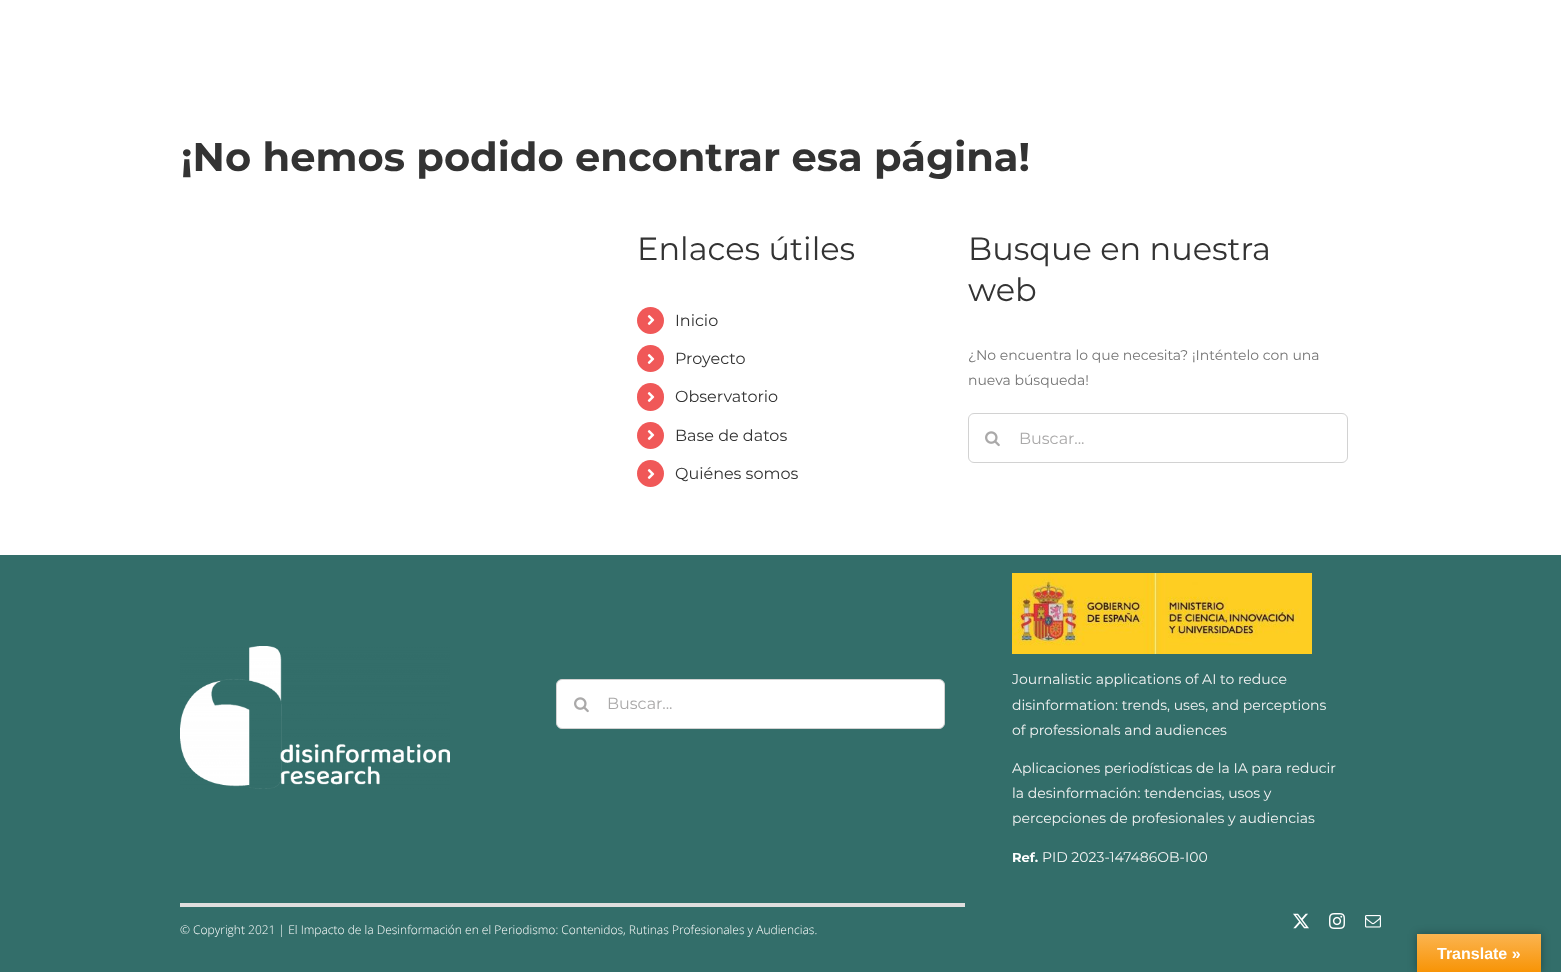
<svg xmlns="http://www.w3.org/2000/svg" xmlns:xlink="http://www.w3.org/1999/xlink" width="1561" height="972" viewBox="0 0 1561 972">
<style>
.cls-1{font:bold 40px Montserrat;fill:#333333}
.cls-2{font:32px Montserrat;fill:#333333}
.cls-3{font:16px Montserrat;fill:#333333}
.cls-4{font:14px Montserrat;fill:#747474}
.cls-5{font:16px Montserrat;fill:#aaa9a9}
.cls-6{font:14px Montserrat;fill:#f4f4f4}
.cls-7{font:bold 13px Montserrat;fill:#ffffff}
.cls-8{font:300 12px Open Sans;fill:#ffffff}
.cls-9{font:bold 16px Liberation Sans;fill:#ffffff}
</style>
<defs>
<linearGradient id="g1" gradientUnits="userSpaceOnUse" x1="1479" y1="934" x2="1479" y2="972"><stop offset="0" stop-color="#fbb450"/><stop offset="1" stop-color="#f89406"/></linearGradient>
</defs>
<rect width="100%" height="100%" fill="#ffffff"/>
<circle fill="#f05858" cx="650.5" cy="320.5" r="13.5"/>
<image xlink:href="image0.png" x="647" y="315" width="8" height="10"/>
<circle fill="#f05858" cx="650.5" cy="358.5" r="13.5"/>
<image xlink:href="image0.png" x="647" y="354" width="8" height="10"/>
<rect fill="#f05858" x="637" y="383" width="27" height="28" rx="13.5"/>
<image xlink:href="image0.png" x="647" y="392" width="8" height="10"/>
<circle fill="#f05858" cx="650.5" cy="435.5" r="13.5"/>
<image xlink:href="image0.png" x="647" y="430" width="8" height="10"/>
<circle fill="#f05858" cx="650.5" cy="473.5" r="13.5"/>
<image xlink:href="image0.png" x="647" y="469" width="8" height="10"/>
<rect fill="none" stroke="#d2d2d2" x="968.5" y="413.5" width="379" height="49" rx="5.5"/>
<image xlink:href="image1.png" x="985" y="431" width="15" height="16"/>
<rect fill="#336e6a" x="0" y="555" width="1561" height="417"/>
<image xlink:href="image2.png" x="180" y="646" width="270" height="143"/>
<rect fill="#ffffff" stroke="#d2d2d2" x="556.5" y="679.5" width="388" height="49" rx="5.5"/>
<image xlink:href="image1.png" x="574" y="697" width="15" height="16"/>
<image xlink:href="image3.png" x="1012" y="573" width="300" height="81"/>
<image xlink:href="image4.png" x="1293" y="913" width="16" height="16"/>
<image xlink:href="image5.png" x="1329" y="913" width="16" height="16"/>
<image xlink:href="image6.png" x="1365" y="915" width="16" height="13"/>
<rect fill="#e0dede" x="180" y="903" width="785" height="4"/>
<rect fill="#000000" fill-opacity="0.3" filter="blur(4.5px)" x="1417" y="934" width="124" height="38"/>
<rect fill="url(#g1)" x="1417" y="934" width="124" height="38"/>
<text class="cls-1" x="181" y="171">¡No hemos podido encontrar esa página!</text>
<text class="cls-2" x="637" y="260">Enlaces útiles</text>
<text class="cls-3" x="675" y="326">Inicio</text>
<text class="cls-3" x="675" y="364">Proyecto</text>
<text class="cls-3" x="675" y="402">Observatorio</text>
<text class="cls-3" x="675" y="441">Base de datos</text>
<text class="cls-3" x="675" y="479">Quiénes somos</text>
<text class="cls-2"><tspan x="968" y="260">Busque en nuestra</tspan><tspan x="968" y="301">web</tspan></text>
<text class="cls-4"><tspan x="968" y="360">¿No encuentra lo que necesita? ¡Inténtelo con una</tspan><tspan x="968" y="385">nueva búsqueda!</tspan></text>
<text class="cls-5" x="1019" y="444">Buscar...</text>
<text class="cls-5" x="607" y="709">Buscar...</text>
<text class="cls-6"><tspan x="1012" y="684">Journalistic applications of AI to reduce</tspan><tspan x="1012" y="710">disinformation: trends, uses, and perceptions</tspan><tspan x="1012" y="735">of professionals and audiences</tspan></text>
<text class="cls-6"><tspan x="1012" y="773">Aplicaciones periodísticas de la IA para reducir</tspan><tspan x="1012" y="798">la desinformación: tendencias, usos y</tspan><tspan x="1012" y="823">percepciones de profesionales y audiencias</tspan></text>
<text class="cls-7" x="1012" y="862">Ref.</text>
<text class="cls-6" x="1042" y="862">PID 2023-147486OB-I00</text>
<text class="cls-8" x="180" y="934">© Copyright 2021 | El Impacto de la Desinformación en el Periodismo: Contenidos, Rutinas Profesionales y Audiencias.</text>
<text class="cls-9" x="1437" y="959">Translate »</text>
</svg>
